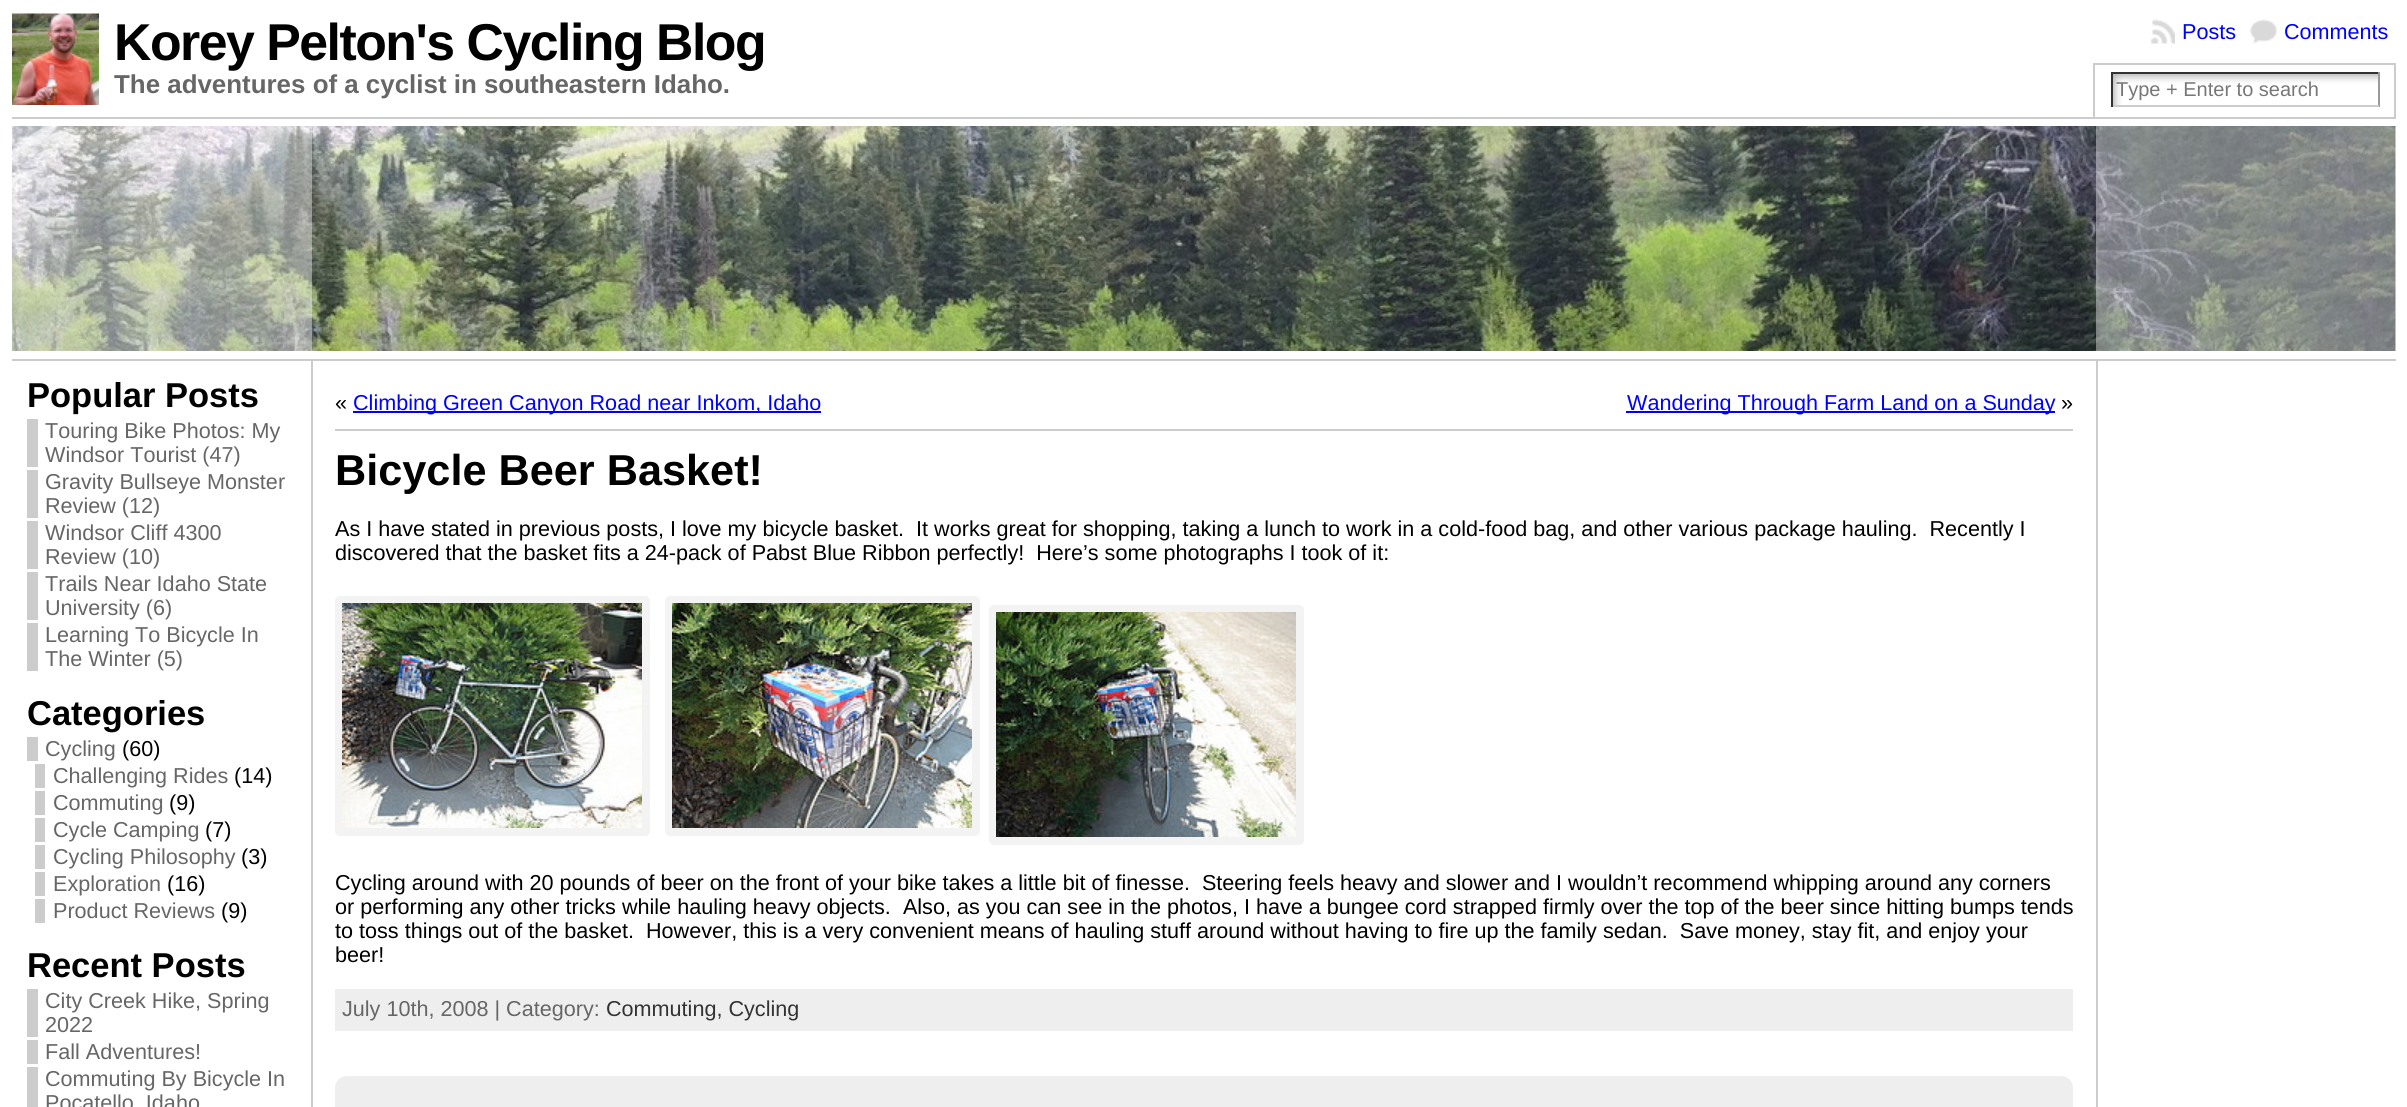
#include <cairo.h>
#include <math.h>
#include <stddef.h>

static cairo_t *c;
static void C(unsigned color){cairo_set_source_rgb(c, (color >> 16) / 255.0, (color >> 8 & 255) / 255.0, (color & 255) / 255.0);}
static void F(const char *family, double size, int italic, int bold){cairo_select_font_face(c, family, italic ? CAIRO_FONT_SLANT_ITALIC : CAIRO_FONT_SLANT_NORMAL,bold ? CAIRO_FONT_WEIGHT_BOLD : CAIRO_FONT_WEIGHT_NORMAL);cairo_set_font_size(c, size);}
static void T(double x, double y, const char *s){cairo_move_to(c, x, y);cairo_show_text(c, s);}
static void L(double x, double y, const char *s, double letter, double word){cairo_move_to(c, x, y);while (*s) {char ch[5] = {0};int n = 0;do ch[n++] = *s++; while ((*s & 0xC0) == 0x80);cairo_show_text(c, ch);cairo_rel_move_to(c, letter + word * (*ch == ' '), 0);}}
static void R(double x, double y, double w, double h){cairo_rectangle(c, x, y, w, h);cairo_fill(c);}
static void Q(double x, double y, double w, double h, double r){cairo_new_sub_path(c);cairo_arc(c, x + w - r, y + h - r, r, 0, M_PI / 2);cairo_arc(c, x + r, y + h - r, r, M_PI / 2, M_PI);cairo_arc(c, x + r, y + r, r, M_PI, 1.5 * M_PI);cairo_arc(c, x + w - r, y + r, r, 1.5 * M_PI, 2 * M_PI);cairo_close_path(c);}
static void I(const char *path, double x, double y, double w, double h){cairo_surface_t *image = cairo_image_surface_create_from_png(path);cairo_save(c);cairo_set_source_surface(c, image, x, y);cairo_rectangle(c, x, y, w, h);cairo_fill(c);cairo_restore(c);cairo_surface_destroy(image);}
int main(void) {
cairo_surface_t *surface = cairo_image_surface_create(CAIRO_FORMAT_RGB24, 2407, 1107);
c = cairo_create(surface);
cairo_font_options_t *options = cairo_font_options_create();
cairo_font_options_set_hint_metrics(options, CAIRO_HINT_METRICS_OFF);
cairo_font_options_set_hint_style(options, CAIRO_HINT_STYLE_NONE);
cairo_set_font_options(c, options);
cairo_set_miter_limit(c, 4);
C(0xffffff);
cairo_paint(c);
I("1.png",12,13,87,92);
F("Liberation Sans",51.8,0,1);
C(0x000000);
L(114,60,"Korey Pelton's Cycling Blog",-1.5,0);
F("Liberation Sans",25.9,0,1);
C(0x666666);
T(114,93,"The adventures of a cyclist in southeastern Idaho.");
I("2.png",2151,19,24,25);
F("Liberation Sans",21.6,0,0);
C(0x0000ff);
T(2182,39,"Posts");
I("3.png",2250,19,27,25);
T(2284,39,"Comments");
C(0xcccccc);
R(2093,63,303,2);
R(2394,63,2,54);
R(2093,63,2,54);
I("4.png",2113,74,265,31);
C(0x333333);
R(2111,72,268,2);
C(0x999999);
R(2378,72,2,35);
C(0xcccccc);
R(2111,105,268,2);
C(0x333333);
R(2111,72,2,35);
F("Liberation Sans",20,0,0);
C(0x777777);
T(2116,96,"Type + Enter to search");
C(0xcccccc);
R(12,117,2384,2);
I("5.png",12,126,2384,225);
cairo_set_source_rgba(c,1,1,1,0.4);
R(12,126,300,225);
R(2096,126,300,225);
C(0xcccccc);
R(311,360,2,747);
R(2096,360,2,747);
R(12,359,2384,2);
F("Liberation Sans",34.5,0,1);
C(0x000000);
T(27,407,"Popular Posts");
C(0xcccccc);
R(27,419,11,48);
F("Liberation Sans",21.6,0,0);
C(0x666666);
T(45,438,"Touring Bike Photos: My");
T(45,462,"Windsor Tourist (47)");
C(0xcccccc);
R(27,470,11,48);
C(0x666666);
T(45,489,"Gravity Bullseye Monster");
T(45,513,"Review (12)");
C(0xcccccc);
R(27,521,11,48);
C(0x666666);
T(45,540,"Windsor Cliff 4300");
T(45,564,"Review (10)");
C(0xcccccc);
R(27,572,11,48);
C(0x666666);
T(45,591,"Trails Near Idaho State");
T(45,615,"University (6)");
C(0xcccccc);
R(27,623,11,48);
C(0x666666);
T(45,642,"Learning To Bicycle In");
T(45,666,"The Winter (5)");
F("Liberation Sans",34.5,0,1);
C(0x000000);
T(27,725,"Categories");
F("Liberation Sans",21.6,0,0);
C(0x666666);
T(45,756,"Cycling");
C(0xcccccc);
R(27,737,11,24);
C(0x000000);
T(122,756,"(60)");
C(0x666666);
T(53,783,"Challenging Rides");
C(0xcccccc);
R(35,764,10,24);
C(0x000000);
T(234,783,"(14)");
C(0x666666);
T(53,810,"Commuting");
C(0xcccccc);
R(35,791,10,24);
C(0x000000);
T(169,810,"(9)");
C(0x666666);
T(53,837,"Cycle Camping");
C(0xcccccc);
R(35,818,10,24);
C(0x000000);
T(205,837,"(7)");
C(0x666666);
T(53,864,"Cycling Philosophy");
C(0xcccccc);
R(35,845,10,24);
C(0x000000);
T(241,864,"(3)");
C(0x666666);
T(53,891,"Exploration");
C(0xcccccc);
R(35,872,10,24);
C(0x000000);
T(167,891,"(16)");
C(0x666666);
T(53,918,"Product Reviews");
C(0xcccccc);
R(35,899,10,24);
C(0x000000);
T(221,918,"(9)");
F("Liberation Sans",34.5,0,1);
T(27,977,"Recent Posts");
C(0xcccccc);
R(27,989,11,48);
F("Liberation Sans",21.6,0,0);
C(0x666666);
T(45,1008,"City Creek Hike, Spring");
T(45,1032,"2022");
C(0xcccccc);
R(27,1040,11,24);
C(0x666666);
T(45,1059,"Fall Adventures!");
C(0xcccccc);
R(27,1067,11,40);
C(0x666666);
T(45,1086,"Commuting By Bicycle In");
T(45,1110,"Pocatello, Idaho");
C(0xcccccc);
R(335,429,1738,2);
C(0x000000);
T(335,410,"«");
C(0x0000ff);
R(353,411,468,2);
T(353,410,"Climbing Green Canyon Road near Inkom, Idaho");
R(1626,411,429,2);
T(1627,410,"Wandering Through Farm Land on a Sunday");
C(0x000000);
T(2061,410,"»");
F("Liberation Sans",43.25,0,1);
T(335,485,"Bicycle Beer Basket!");
F("Liberation Sans",21.6,0,0);
T(335,536,"As I have stated in previous posts, I love my bicycle basket.  It works great for shopping, taking a lunch to work in a cold-food bag, and other various package hauling.  Recently I");
T(335,560,"discovered that the basket fits a 24-pack of Pabst Blue Ribbon perfectly!  Here’s some photographs I took of it:");
C(0xf3f3f3);
Q(335,596,315,240,5);
cairo_fill(c);
Q(665,596,315,240,5);
cairo_fill(c);
I("6.png",342,603,300,225);
I("7.png",672,603,300,225);
Q(989,605,315,240,5);
cairo_fill(c);
I("8.png",996,612,300,225);
C(0x000000);
T(335,890,"Cycling around with 20 pounds of beer on the front of your bike takes a little bit of finesse.  Steering feels heavy and slower and I wouldn’t recommend whipping around any corners");
T(335,914,"or performing any other tricks while hauling heavy objects.  Also, as you can see in the photos, I have a bungee cord strapped firmly over the top of the beer since hitting bumps tends");
T(335,938,"to toss things out of the basket.  However, this is a very convenient means of hauling stuff around without having to fire up the family sedan.  Save money, stay fit, and enjoy your");
T(335,962,"beer!");
C(0xeeeeee);
R(335,989,1738,42);
C(0x666666);
T(342,1016,"July 10th, 2008 | Category:");
C(0x333333);
T(606,1016,"Commuting, Cycling");
C(0xeeeeee);
Q(335,1076,1738,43,12);
cairo_fill(c);
cairo_surface_write_to_png(surface, "o.png");
cairo_font_options_destroy(options);
cairo_destroy(c);
cairo_surface_destroy(surface);
return 0;
}
